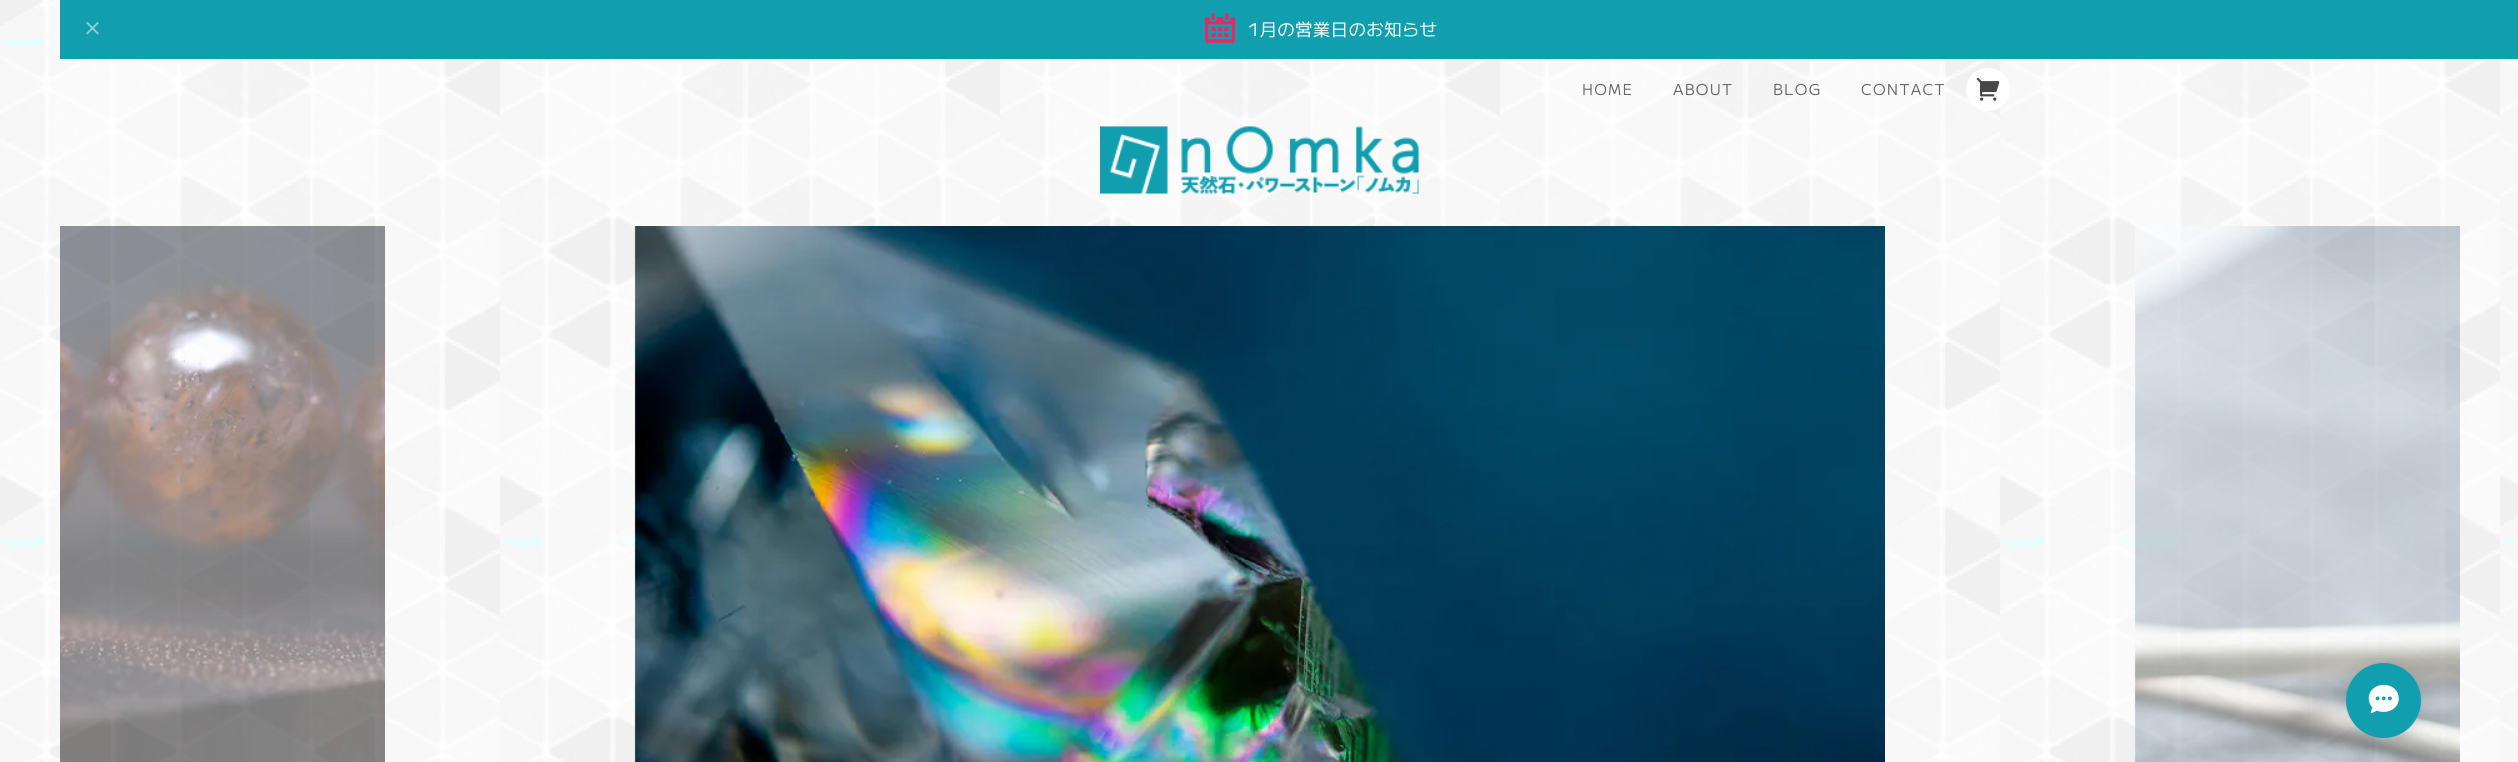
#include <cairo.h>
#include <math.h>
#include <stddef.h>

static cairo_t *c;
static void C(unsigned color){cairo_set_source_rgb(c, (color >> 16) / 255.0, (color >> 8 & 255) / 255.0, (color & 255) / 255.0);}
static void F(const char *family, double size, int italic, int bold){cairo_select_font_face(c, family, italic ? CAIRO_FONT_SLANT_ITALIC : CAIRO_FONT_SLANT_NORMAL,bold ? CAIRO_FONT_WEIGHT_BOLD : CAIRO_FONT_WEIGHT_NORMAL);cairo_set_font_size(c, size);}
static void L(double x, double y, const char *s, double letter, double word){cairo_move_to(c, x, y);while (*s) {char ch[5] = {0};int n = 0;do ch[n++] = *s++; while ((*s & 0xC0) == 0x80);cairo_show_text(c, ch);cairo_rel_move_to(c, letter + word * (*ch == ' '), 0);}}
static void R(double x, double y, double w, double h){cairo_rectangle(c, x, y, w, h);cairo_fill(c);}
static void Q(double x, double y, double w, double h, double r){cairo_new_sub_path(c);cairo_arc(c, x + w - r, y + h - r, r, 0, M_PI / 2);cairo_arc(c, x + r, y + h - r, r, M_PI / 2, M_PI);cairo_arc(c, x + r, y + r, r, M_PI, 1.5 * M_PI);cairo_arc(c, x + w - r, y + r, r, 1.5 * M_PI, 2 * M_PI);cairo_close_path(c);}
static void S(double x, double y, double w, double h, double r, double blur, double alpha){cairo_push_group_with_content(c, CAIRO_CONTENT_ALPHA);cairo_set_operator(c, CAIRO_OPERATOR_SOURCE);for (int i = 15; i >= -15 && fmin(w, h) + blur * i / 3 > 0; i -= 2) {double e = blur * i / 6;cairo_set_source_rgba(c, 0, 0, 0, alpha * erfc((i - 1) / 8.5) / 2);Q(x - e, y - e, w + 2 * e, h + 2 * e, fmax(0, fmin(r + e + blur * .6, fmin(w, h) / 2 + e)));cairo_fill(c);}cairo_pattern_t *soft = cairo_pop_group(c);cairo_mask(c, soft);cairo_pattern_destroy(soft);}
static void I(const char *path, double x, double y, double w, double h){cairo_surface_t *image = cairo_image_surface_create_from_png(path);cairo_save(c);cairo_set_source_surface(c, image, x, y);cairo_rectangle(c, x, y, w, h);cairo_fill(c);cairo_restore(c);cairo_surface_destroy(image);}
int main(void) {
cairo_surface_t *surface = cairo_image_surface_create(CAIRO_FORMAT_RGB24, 2518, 762);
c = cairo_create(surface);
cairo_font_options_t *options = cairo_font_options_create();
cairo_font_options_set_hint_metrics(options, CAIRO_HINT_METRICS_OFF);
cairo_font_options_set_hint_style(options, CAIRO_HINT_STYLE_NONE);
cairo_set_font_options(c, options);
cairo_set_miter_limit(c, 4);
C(0xffffff);
cairo_paint(c);
I("1.png",0,0,2518,762);
C(0x119fb0);
R(60,0,2458,59);
I("2.png",86,21,13,14);
I("3.png",1205,12,30,31);
F("M PLUS 2",17.5,0,0);
C(0xffffff);
L(1248,36,"1月の営業日のお知らせ",.3,0);
F("M PLUS 2",15,0,0);
C(0x666666);
L(1582,95,"HOME",1.25,0);
L(1673,95,"ABOUT",1.25,0);
L(1773,95,"BLOG",1.25,0);
L(1861,95,"CONTACT",1.25,0);
cairo_set_source_rgba(c,1,1,1,0.9);
Q(1966,68,44,43,21.5);
cairo_fill(c);
I("4.png",1976,77,24,24);
I("5.png",1100,126,319,68);
I("6.png",60,226,325,536);
I("7.png",634,226,1251,536);
I("8.png",2134,226,326,536);
C(0x334258);
S(2346,663,75,75,37.5,9.5,.2);
C(0x119fb0);
cairo_arc(c,2383.5,700.5,37.5,0,2 * M_PI);
cairo_fill(c);
I("9.png",2368,684,31,30);
cairo_surface_write_to_png(surface, "o.png");
cairo_font_options_destroy(options);
cairo_destroy(c);
cairo_surface_destroy(surface);
return 0;
}
